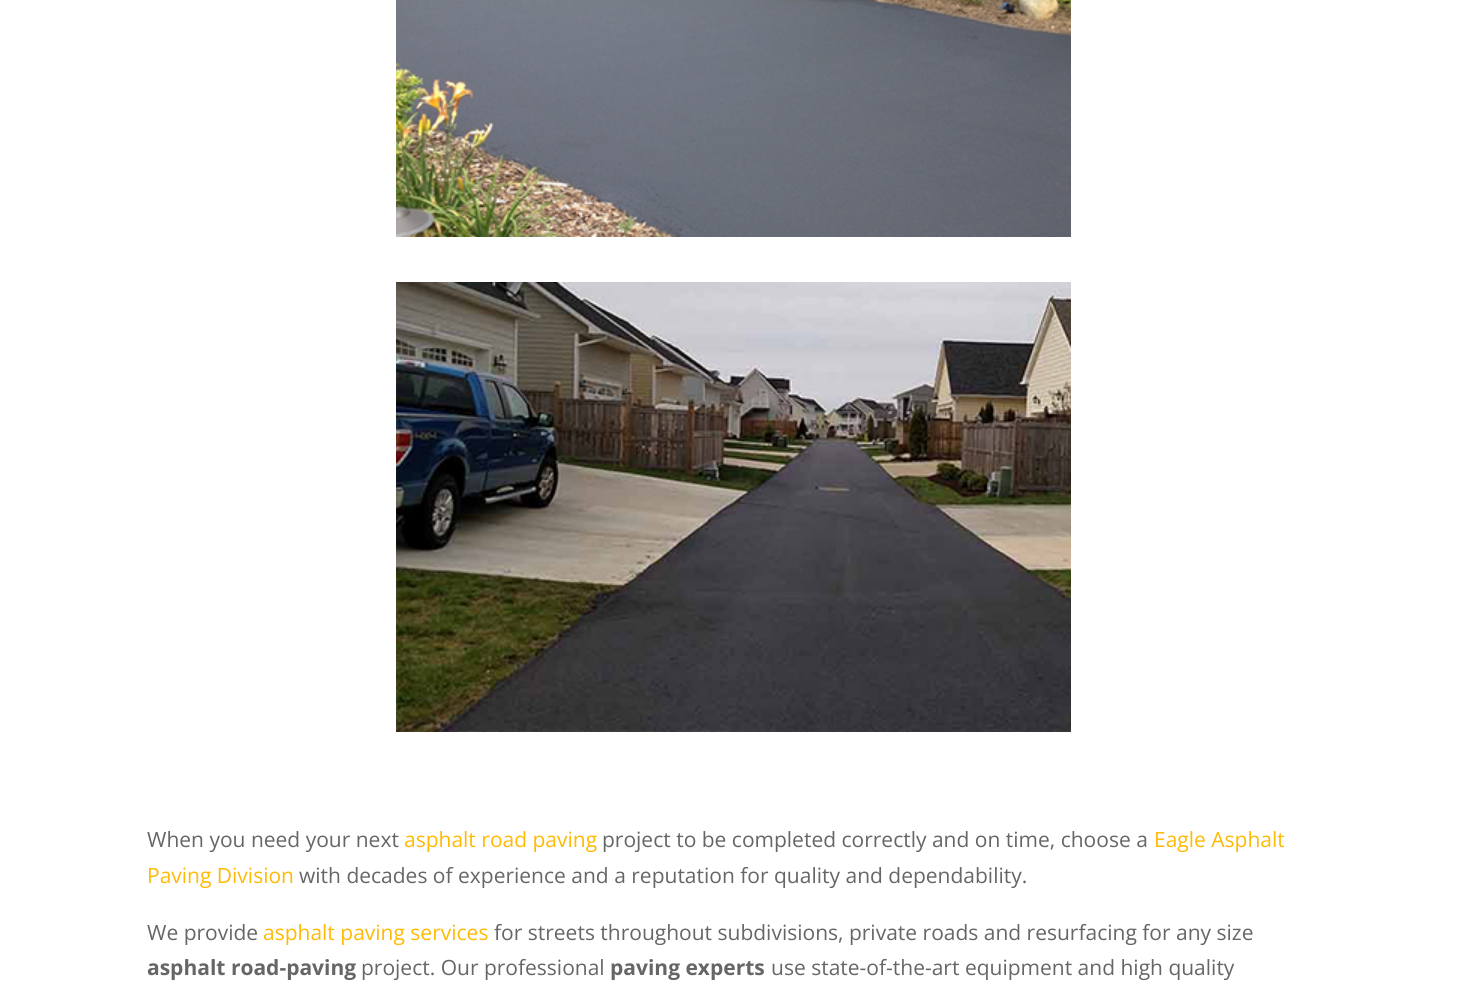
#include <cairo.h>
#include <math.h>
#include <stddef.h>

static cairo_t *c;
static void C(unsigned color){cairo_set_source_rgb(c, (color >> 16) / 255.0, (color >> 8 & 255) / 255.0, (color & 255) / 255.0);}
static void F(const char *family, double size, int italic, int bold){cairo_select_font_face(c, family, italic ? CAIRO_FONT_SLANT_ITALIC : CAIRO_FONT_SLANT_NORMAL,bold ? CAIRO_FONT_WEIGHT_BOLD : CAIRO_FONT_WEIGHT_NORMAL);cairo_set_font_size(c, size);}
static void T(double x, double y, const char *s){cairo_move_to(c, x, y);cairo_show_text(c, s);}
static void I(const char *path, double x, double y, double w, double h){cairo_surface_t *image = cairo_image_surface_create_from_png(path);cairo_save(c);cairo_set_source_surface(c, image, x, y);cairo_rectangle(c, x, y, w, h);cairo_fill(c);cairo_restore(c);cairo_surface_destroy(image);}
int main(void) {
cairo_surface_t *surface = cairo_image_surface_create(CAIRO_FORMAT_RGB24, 1465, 993);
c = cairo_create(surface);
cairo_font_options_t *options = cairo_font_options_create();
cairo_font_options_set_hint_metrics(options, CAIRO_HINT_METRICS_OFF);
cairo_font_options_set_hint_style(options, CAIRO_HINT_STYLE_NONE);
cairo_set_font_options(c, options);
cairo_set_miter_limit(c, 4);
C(0xffffff);
cairo_paint(c);
I("1.png",396,0,675,237);
I("2.png",396,282,675,450);
F("Open Sans",21,0,0);
C(0x666666);
T(147,847,"When you need your next");
C(0xffba05);
T(404,847,"asphalt road paving");
C(0x666666);
T(602,847,"project to be completed correctly and on time, choose a");
C(0xffba05);
T(1154,847,"Eagle Asphalt");
T(147,883,"Paving Division");
C(0x666666);
T(299,883,"with decades of experience and a reputation for quality and dependability.");
T(147,940,"We provide");
C(0xffba05);
T(263,940,"asphalt paving services");
C(0x666666);
T(494,940,"for streets throughout subdivisions, private roads and resurfacing for any size");
F("Open Sans",21,0,1);
T(147,975,"asphalt road-paving");
F("Open Sans",21,0,0);
T(361,975,"project. Our professional");
F("Open Sans",21,0,1);
T(610,975,"paving experts");
F("Open Sans",21,0,0);
T(771,975,"use state-of-the-art equipment and high quality");
cairo_surface_write_to_png(surface, "o.png");
cairo_font_options_destroy(options);
cairo_destroy(c);
cairo_surface_destroy(surface);
return 0;
}
